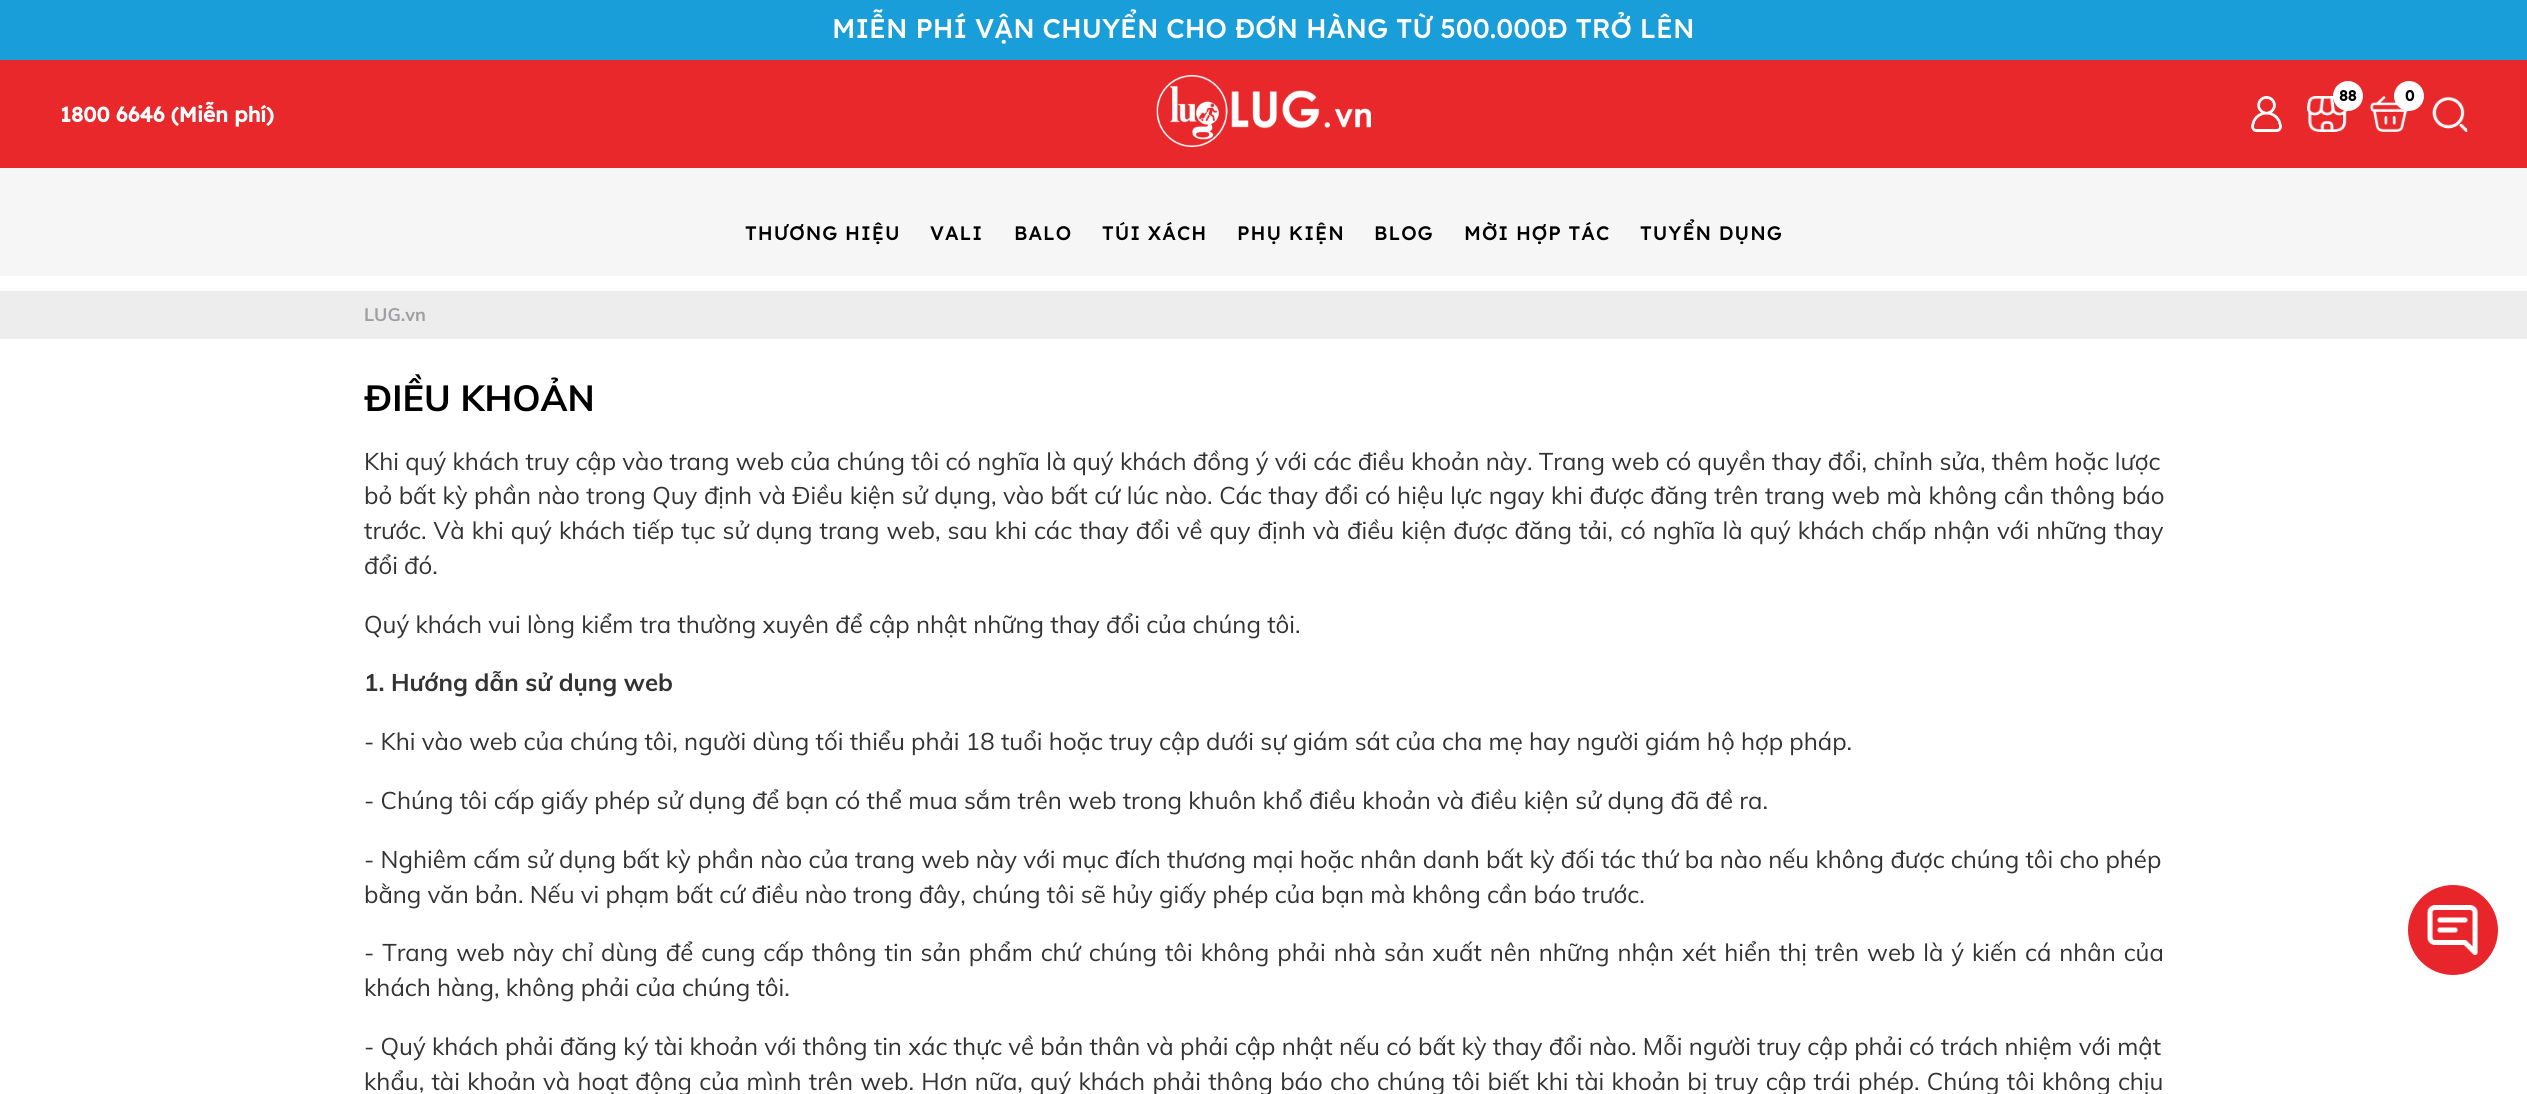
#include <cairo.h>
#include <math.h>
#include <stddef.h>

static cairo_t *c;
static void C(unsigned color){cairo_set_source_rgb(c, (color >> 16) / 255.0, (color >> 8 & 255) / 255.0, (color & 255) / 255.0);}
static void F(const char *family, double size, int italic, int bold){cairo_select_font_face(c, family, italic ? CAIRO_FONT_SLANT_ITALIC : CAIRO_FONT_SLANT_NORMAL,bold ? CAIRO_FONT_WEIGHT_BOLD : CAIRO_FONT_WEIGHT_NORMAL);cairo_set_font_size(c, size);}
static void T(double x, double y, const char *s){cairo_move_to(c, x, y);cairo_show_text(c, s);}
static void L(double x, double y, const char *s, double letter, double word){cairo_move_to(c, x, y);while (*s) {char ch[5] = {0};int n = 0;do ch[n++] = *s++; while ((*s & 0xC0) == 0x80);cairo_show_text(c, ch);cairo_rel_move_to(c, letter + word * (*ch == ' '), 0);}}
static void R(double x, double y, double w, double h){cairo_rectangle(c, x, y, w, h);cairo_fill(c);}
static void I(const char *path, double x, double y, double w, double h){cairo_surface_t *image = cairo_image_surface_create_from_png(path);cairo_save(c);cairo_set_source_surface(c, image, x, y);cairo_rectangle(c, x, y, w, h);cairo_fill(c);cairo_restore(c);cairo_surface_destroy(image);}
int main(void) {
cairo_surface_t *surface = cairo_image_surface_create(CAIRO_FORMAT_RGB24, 2527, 1094);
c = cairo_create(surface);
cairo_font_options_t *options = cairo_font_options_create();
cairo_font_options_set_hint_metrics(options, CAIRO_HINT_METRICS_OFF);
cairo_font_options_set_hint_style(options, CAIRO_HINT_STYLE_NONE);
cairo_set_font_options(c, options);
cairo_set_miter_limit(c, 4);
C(0xffffff);
cairo_paint(c);
C(0x199eda);
R(0,0,2527,60);
F("Readex Pro Medium",27,0,0);
C(0xffffff);
T(832,38,"MIỄN PHÍ VẬN CHUYỂN CHO ĐƠN HÀNG TỪ 500.000Đ TRỞ LÊN");
C(0xe8282b);
R(0,60,2527,108);
I("1.png",1156,75,215,72);
I("2.png",2251,96,31,36);
I("3.png",2307,96,41,36);
C(0xffffff);
cairo_arc(c,2348,96,15,0,2 * M_PI);
cairo_fill(c);
F("Readex Pro",15,0,1);
C(0x000000);
T(2339,101,"88");
I("4.png",2370,96,39,36);
C(0xffffff);
cairo_arc(c,2409,96,15,0,2 * M_PI);
cairo_fill(c);
C(0x000000);
T(2405,101,"0");
I("5.png",2432,96,36,36);
F("Readex Pro",21,0,1);
C(0xffffff);
T(60,122,"1800 6646 (Miễn phí)");
C(0xf6f6f6);
R(0,168,2527,108);
F("Readex Pro Medium",19.5,0,0);
C(0x000000);
L(745,240,"THƯƠNG HIỆU",1,0);
L(930,240,"VALI",1,0);
L(1014,240,"BALO",1,0);
L(1102,240,"TÚI XÁCH",1,0);
L(1237,240,"PHỤ KIỆN",1,0);
L(1374,240,"BLOG",1,0);
L(1464,240,"MỜI HỢP TÁC",1,0);
L(1640,240,"TUYỂN DỤNG",1,0);
C(0xededed);
R(0,291,2527,48);
F("Muli",18,0,1);
C(0x9e9fa1);
T(364,321,"LUG.vn");
F("Muli",36,0,1);
C(0x000000);
T(364,411,"ĐIỀU KHOẢN");
F("Muli",24,0,0);
C(0x333333);
T(364,470,"Khi quý khách truy cập vào trang web của chúng tôi có nghĩa là quý khách đồng ý với các điều khoản này. Trang web có quyền thay đổi, chỉnh sửa, thêm hoặc lược");
L(364,504,"bỏ bất kỳ phần nào trong Quy định và Điều kiện sử dụng, vào bất cứ lúc nào. Các thay đổi có hiệu lực ngay khi được đăng trên trang web mà không cần thông báo",0,.3);
L(364,539,"trước. Và khi quý khách tiếp tục sử dụng trang web, sau khi các thay đổi về quy định và điều kiện được đăng tải, có nghĩa là quý khách chấp nhận với những thay",0,.8);
T(364,574,"đổi đó.");
T(364,633,"Quý khách vui lòng kiểm tra thường xuyên để cập nhật những thay đổi của chúng tôi.");
F("Muli",24,0,1);
T(364,691,"1. Hướng dẫn sử dụng web");
F("Muli",24,0,0);
T(364,750,"- Khi vào web của chúng tôi, người dùng tối thiểu phải 18 tuổi hoặc truy cập dưới sự giám sát của cha mẹ hay người giám hộ hợp pháp.");
T(364,809,"- Chúng tôi cấp giấy phép sử dụng để bạn có thể mua sắm trên web trong khuôn khổ điều khoản và điều kiện sử dụng đã đề ra.");
T(364,868,"- Nghiêm cấm sử dụng bất kỳ phần nào của trang web này với mục đích thương mại hoặc nhân danh bất kỳ đối tác thứ ba nào nếu không được chúng tôi cho phép");
T(364,903,"bằng văn bản. Nếu vi phạm bất cứ điều nào trong đây, chúng tôi sẽ hủy giấy phép của bạn mà không cần báo trước.");
L(364,961,"- Trang web này chỉ dùng để cung cấp thông tin sản phẩm chứ chúng tôi không phải nhà sản xuất nên những nhận xét hiển thị trên web là ý kiến cá nhân của",0,1.65);
T(364,996,"khách hàng, không phải của chúng tôi.");
T(364,1055,"- Quý khách phải đăng ký tài khoản với thông tin xác thực về bản thân và phải cập nhật nếu có bất kỳ thay đổi nào. Mỗi người truy cập phải có trách nhiệm với mật");
L(364,1090,"khẩu, tài khoản và hoạt động của mình trên web. Hơn nữa, quý khách phải thông báo cho chúng tôi biết khi tài khoản bị truy cập trái phép. Chúng tôi không chịu",0,1);
C(0xe9252c);
cairo_new_path(c);
cairo_arc(c,2453,930,45,0,2 * M_PI);
cairo_fill(c);
I("6.png",2427,905,51,50);
cairo_surface_write_to_png(surface, "o.png");
cairo_font_options_destroy(options);
cairo_destroy(c);
cairo_surface_destroy(surface);
return 0;
}
